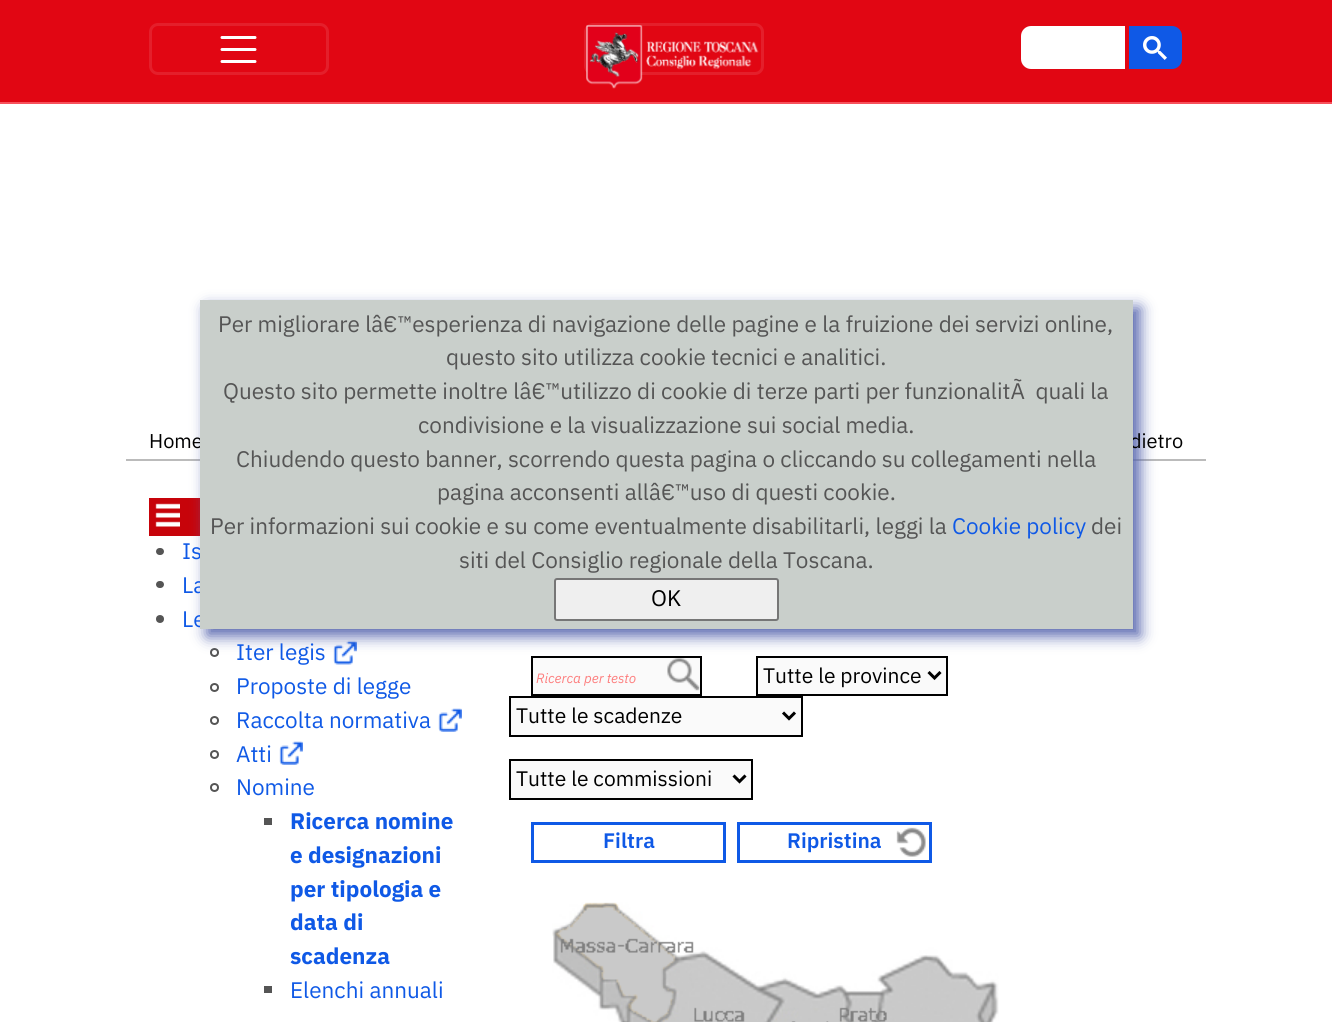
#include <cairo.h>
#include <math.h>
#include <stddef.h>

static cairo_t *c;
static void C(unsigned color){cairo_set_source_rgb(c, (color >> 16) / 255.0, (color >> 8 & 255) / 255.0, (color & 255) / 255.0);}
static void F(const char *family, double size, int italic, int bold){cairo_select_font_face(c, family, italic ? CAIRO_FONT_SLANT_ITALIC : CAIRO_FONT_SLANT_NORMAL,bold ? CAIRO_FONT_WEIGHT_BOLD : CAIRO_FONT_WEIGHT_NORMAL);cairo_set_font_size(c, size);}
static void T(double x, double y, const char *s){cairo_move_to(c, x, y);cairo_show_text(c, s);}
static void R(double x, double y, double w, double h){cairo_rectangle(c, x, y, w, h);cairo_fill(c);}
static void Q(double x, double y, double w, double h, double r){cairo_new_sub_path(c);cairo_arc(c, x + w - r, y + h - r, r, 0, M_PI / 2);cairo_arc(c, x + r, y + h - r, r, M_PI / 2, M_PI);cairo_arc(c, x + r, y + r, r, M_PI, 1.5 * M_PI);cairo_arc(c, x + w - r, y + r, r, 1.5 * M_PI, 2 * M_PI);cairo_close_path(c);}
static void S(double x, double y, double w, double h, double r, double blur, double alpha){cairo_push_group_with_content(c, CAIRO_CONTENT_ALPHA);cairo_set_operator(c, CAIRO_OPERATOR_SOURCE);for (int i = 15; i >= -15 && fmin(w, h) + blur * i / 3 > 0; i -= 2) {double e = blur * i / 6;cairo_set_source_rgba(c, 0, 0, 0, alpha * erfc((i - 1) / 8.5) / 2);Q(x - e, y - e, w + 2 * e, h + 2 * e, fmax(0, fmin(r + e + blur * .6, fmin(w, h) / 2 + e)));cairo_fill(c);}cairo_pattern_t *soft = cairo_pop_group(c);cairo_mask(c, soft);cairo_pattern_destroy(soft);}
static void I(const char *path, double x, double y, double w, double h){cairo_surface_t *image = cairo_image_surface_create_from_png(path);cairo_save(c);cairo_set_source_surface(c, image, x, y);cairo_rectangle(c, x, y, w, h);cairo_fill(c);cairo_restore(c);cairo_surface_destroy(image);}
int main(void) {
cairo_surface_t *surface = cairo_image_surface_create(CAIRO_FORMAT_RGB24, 1332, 1022);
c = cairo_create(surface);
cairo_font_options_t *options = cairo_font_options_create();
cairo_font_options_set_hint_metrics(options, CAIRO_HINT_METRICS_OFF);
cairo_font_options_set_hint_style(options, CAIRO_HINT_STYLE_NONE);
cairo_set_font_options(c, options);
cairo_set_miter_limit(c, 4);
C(0xffffff);
cairo_paint(c);
C(0xe10613);
R(0,0,1332,102);
C(0xf7525c);
R(0,102,1332,2);
Q(150.5,24.5,177,49,7.5);
C(0xe41f2b);
cairo_set_line_width(c,3);
cairo_stroke(c);
cairo_new_path(c);
cairo_move_to(c,222,37.5);
cairo_line_to(c,255,37.5);
cairo_move_to(c,222,49.5);
cairo_line_to(c,255,49.5);
cairo_move_to(c,222,61.5);
cairo_line_to(c,255,61.5);
C(0xffffff);
cairo_set_line_cap(c,CAIRO_LINE_CAP_ROUND);
cairo_stroke(c);
Q(585.5,24.5,177,49,7.5);
C(0xe41f2b);
cairo_set_line_cap(c,CAIRO_LINE_CAP_BUTT);
cairo_stroke(c);
I("1.png",586,25,173,64);
C(0xffffff);
cairo_new_path(c);
cairo_move_to(c,1031,25);
cairo_line_to(c,1126,25);
cairo_line_to(c,1126,70);
cairo_line_to(c,1031,70);
cairo_curve_to(c,1025,70,1020,65,1020,59);
cairo_line_to(c,1020,36);
cairo_curve_to(c,1020,30,1025,25,1031,25);
cairo_close_path(c);
cairo_fill_preserve(c);
C(0xe10613);
cairo_set_line_width(c,2);
cairo_stroke(c);
C(0x0f59e6);
cairo_new_path(c);
cairo_move_to(c,1128,25);
cairo_line_to(c,1172,25);
cairo_curve_to(c,1178,25,1183,30,1183,36);
cairo_line_to(c,1183,59);
cairo_curve_to(c,1183,65,1178,70,1172,70);
cairo_line_to(c,1128,70);
cairo_close_path(c);
cairo_fill_preserve(c);
C(0xe10613);
cairo_stroke(c);
I("2.png",1143,36,24,24);
C(0xbbbbbb);
R(126,459,1080,2);
C(0xc7030a);
R(149,498,51,38);
cairo_arc(c,214.5,652.5,3.5,0,2 * M_PI);
C(0x555555);
cairo_stroke(c);
I("4.png",333,640,24,25);
C(0xfafafa);
R(533,658,167,36);
I("6.png",667,658,33,33);
cairo_rectangle(c,532,657,169,38);
C(0x000000);
cairo_stroke(c);
C(0xfafafa);
cairo_rectangle(c,757,657,190,38);
cairo_fill_preserve(c);
C(0x000000);
cairo_stroke(c);
C(0x5564ad);
S(207,308,933,328,0,7.5,1);
F("IBM Plex Sans",20,0,0);
C(0x000000);
T(149,448,"Home");
T(1130,448,"dietro");
F("IBM Plex Sans",22.5,0,0);
C(0x0f59e6);
T(182,559,"Is");
T(182,593,"La");
T(182,627,"Le");
C(0xc9cfcb);
R(200,300,933,329);
C(0x555555);
T(218,332,"Per migliorare lâ€™esperienza di navigazione delle pagine e la fruizione dei servizi online,");
T(446,365,"questo sito utilizza cookie tecnici e analitici.");
T(223,399,"Questo sito permette inoltre lâ€™utilizzo di cookie di terze parti per funzionalitÃ  quali la");
T(418,433,"condivisione e la visualizzazione sui social media.");
T(236,467,"Chiudendo questo banner, scorrendo questa pagina o cliccando su collegamenti nella");
T(437,500,"pagina acconsenti allâ€™uso di questi cookie.");
T(210,534,"Per informazioni sui cookie e su come eventualmente disabilitarli, leggi la");
C(0x0f59e6);
T(952,534,"Cookie policy");
C(0x555555);
T(1091,534,"dei");
T(459,568,"siti del Consiglio regionale della Toscana.");
C(0xefefef);
Q(555,579,223,41,2);
cairo_fill_preserve(c);
C(0x767676);
cairo_stroke(c);
C(0x000000);
T(651,606,"OK");
I("3.png",155,503,25,24);
C(0x555555);
Q(156,548,8,7,3.5);
cairo_fill(c);
Q(156,581,8,7,3.5);
cairo_fill(c);
cairo_arc(c,160,619,4,0,2 * M_PI);
cairo_fill(c);
C(0x0f59e6);
T(236,660,"Iter legis");
cairo_new_path(c);
cairo_arc(c,214.5,687.5,3.5,0,2 * M_PI);
C(0x555555);
cairo_stroke(c);
C(0x0f59e6);
T(236,694,"Proposte di legge");
cairo_new_path(c);
cairo_arc(c,214.5,720.5,3.5,0,2 * M_PI);
C(0x555555);
cairo_stroke(c);
C(0x0f59e6);
T(236,728,"Raccolta normativa");
I("5.png",438,708,24,24);
cairo_arc(c,214.5,754.5,3.5,0,2 * M_PI);
C(0x555555);
cairo_stroke(c);
C(0x0f59e6);
T(236,762,"Atti");
I("5.png",279,741,24,24);
cairo_arc(c,214.5,787.5,3.5,0,2 * M_PI);
C(0x555555);
cairo_stroke(c);
C(0x0f59e6);
T(236,795,"Nomine");
C(0x555555);
R(264,818,8,7);
F("IBM Plex Sans",22.5,0,1);
C(0x0f59e6);
T(290,829,"Ricerca nomine");
T(290,863,"e designazioni");
T(290,897,"per tipologia e");
T(290,930,"data di");
T(290,964,"scadenza");
C(0x555555);
R(264,986,8,7);
F("IBM Plex Sans",22.5,0,0);
C(0x0f59e6);
T(290,998,"Elenchi annuali");
F("IBM Plex Sans",13.5,1,0);
C(0xfd7d7d);
T(536,683,"Ricerca per testo");
cairo_new_path(c);
cairo_move_to(c,928.5,672);
cairo_line_to(c,934.5,678);
cairo_line_to(c,940.5,672);
C(0x000000);
cairo_set_line_width(c,3);
cairo_stroke(c);
F("IBM Plex Sans",21,0,0);
T(763,683,"Tutte le province");
C(0xfafafa);
cairo_rectangle(c,510,697,292,39);
cairo_fill_preserve(c);
C(0x000000);
cairo_set_line_width(c,2);
cairo_stroke(c);
cairo_new_path(c);
cairo_move_to(c,783,712.5);
cairo_line_to(c,789,718.5);
cairo_line_to(c,795,712.5);
cairo_set_line_width(c,3);
cairo_stroke(c);
T(516,723,"Tutte le scadenze");
C(0xfafafa);
cairo_rectangle(c,510,760,242,39);
cairo_fill_preserve(c);
C(0x000000);
cairo_set_line_width(c,2);
cairo_stroke(c);
cairo_new_path(c);
cairo_move_to(c,733.5,775.5);
cairo_line_to(c,739.5,781.5);
cairo_line_to(c,745.5,775.5);
cairo_set_line_width(c,3);
cairo_stroke(c);
T(516,786,"Tutte le commissioni");
cairo_rectangle(c,532.5,823.5,192,38);
C(0x0f59e6);
cairo_stroke(c);
F("IBM Plex Sans SemiBold",21,0,0);
T(603,848,"Filtra");
I("7.png",896,827,30,30);
cairo_rectangle(c,738.5,823.5,192,38);
cairo_stroke(c);
T(787,848,"Ripristina");
I("8.png",552,902,447,120);
cairo_surface_write_to_png(surface, "o.png");
cairo_font_options_destroy(options);
cairo_destroy(c);
cairo_surface_destroy(surface);
return 0;
}
